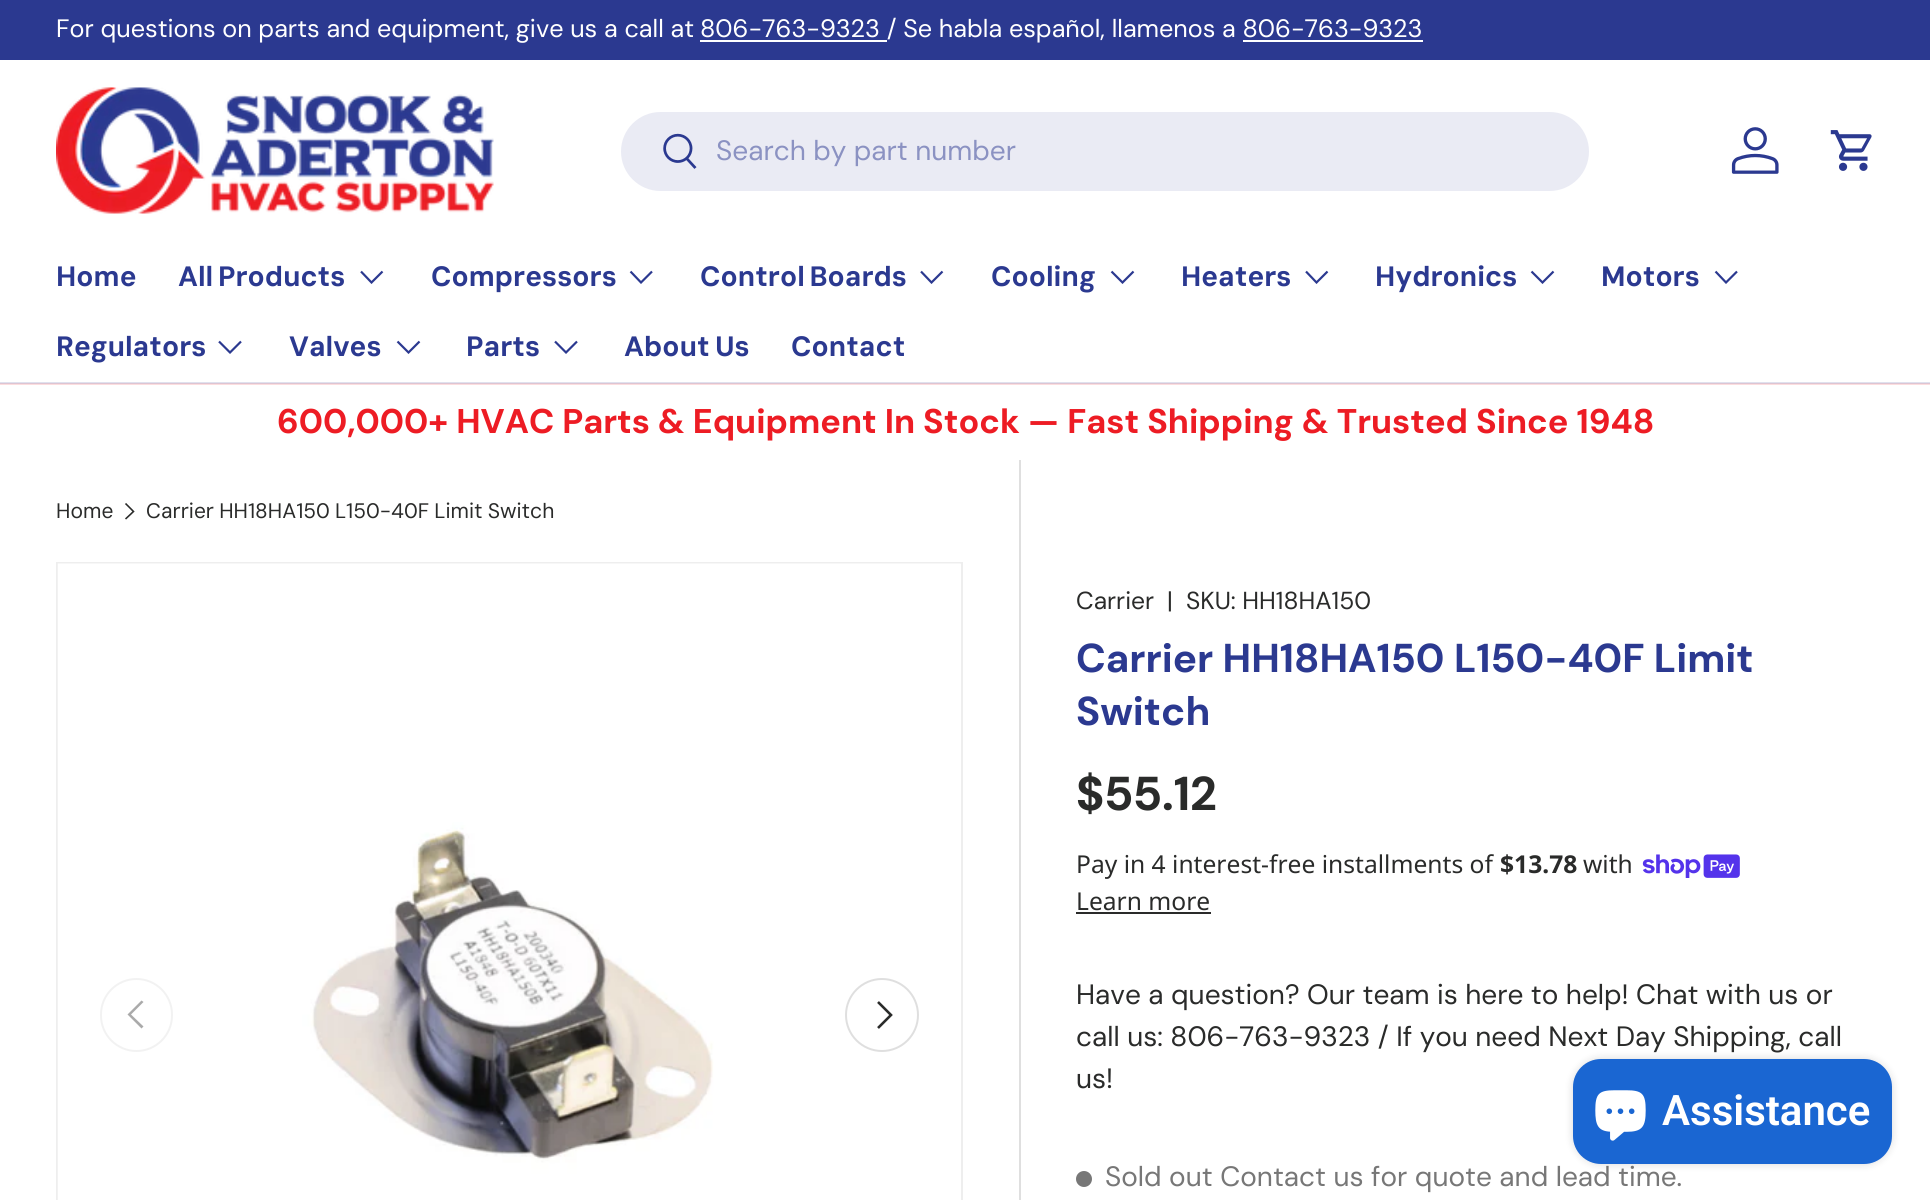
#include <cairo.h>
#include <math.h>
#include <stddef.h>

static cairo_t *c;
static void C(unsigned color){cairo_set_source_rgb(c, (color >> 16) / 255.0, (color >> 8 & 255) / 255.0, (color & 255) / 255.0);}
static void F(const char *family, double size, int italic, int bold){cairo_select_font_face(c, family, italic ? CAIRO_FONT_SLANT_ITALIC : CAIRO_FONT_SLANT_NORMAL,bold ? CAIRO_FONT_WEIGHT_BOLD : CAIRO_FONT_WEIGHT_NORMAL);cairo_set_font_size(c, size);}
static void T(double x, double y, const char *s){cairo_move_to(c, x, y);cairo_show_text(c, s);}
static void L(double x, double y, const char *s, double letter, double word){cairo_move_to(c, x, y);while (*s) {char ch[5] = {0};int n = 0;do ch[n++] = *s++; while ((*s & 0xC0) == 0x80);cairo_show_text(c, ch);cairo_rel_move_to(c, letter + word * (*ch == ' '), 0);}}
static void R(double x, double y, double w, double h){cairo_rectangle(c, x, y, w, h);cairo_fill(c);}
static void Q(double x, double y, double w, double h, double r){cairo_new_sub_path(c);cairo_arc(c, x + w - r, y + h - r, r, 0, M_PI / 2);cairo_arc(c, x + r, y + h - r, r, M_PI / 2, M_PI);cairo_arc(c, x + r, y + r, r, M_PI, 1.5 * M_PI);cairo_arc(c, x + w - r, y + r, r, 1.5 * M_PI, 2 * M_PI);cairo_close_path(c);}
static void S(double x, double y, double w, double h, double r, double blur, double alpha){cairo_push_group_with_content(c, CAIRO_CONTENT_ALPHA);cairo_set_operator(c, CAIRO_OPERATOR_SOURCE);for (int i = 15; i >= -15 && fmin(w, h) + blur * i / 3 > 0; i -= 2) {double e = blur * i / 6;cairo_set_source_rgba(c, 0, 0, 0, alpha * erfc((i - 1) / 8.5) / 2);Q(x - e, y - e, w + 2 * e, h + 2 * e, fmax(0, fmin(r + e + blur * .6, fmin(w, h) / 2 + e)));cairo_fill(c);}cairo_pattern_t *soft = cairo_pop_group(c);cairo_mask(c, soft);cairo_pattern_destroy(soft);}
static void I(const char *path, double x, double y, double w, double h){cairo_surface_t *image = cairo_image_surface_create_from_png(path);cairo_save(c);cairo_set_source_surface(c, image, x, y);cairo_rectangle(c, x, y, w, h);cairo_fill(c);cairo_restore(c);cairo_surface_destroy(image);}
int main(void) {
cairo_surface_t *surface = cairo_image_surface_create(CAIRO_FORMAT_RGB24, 1930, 1200);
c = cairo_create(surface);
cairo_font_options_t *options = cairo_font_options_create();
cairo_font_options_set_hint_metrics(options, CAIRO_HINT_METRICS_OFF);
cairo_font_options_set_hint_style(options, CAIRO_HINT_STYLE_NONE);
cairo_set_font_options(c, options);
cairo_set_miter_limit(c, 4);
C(0xffffff);
cairo_paint(c);
C(0xdfe1ee);
R(0,382,1930,1);
C(0x2b3990);
R(0,0,1930,60);
F("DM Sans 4",25.2,0,0);
C(0xffffff);
T(56,37,"For questions on parts and equipment, give us a call at");
R(700,40,187,2);
T(700,37,"806-763-9323 / Se habla español, llamenos a 806-763-9323");
R(1243,40,180,2);
I("1.png",56,87,438,127);
C(0xeaebf4);
Q(621,112,968,79,39.5);
cairo_fill(c);
I("2.png",663,133,34,36);
F("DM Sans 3",28,0,0);
C(0x8b92c2);
T(716,160,"Search by part number");
I("3.png",1731,127,48,47);
I("4.png",1830,130,42,41);
F("DM Sans 4",28,0,1);
C(0x2b3990);
T(56,286,"Home");
L(178,286,"All Products",0,-2);
cairo_new_path(c);
cairo_move_to(c,382.5,271.5);
cairo_line_to(c,371.5,282.5);
cairo_line_to(c,361,271.5);
cairo_set_line_width(c,2.2);
cairo_stroke(c);
T(431,286,"Compressors");
cairo_new_path(c);
cairo_move_to(c,652,271.5);
cairo_line_to(c,641,282.5);
cairo_line_to(c,630.5,271.5);
cairo_stroke(c);
L(700,286,"Control Boards",0,-2);
cairo_new_path(c);
cairo_move_to(c,942.5,271.5);
cairo_line_to(c,931.5,282.5);
cairo_line_to(c,921,271.5);
cairo_stroke(c);
T(991,286,"Cooling");
cairo_new_path(c);
cairo_move_to(c,1133.5,271.5);
cairo_line_to(c,1122.5,282.5);
cairo_line_to(c,1111.5,271.5);
cairo_stroke(c);
T(1181,286,"Heaters");
cairo_new_path(c);
cairo_move_to(c,1327.5,271.5);
cairo_line_to(c,1316.5,282.5);
cairo_line_to(c,1306,271.5);
cairo_stroke(c);
T(1375,286,"Hydronics");
cairo_new_path(c);
cairo_move_to(c,1553.5,271.5);
cairo_line_to(c,1542.5,282.5);
cairo_line_to(c,1531.5,271.5);
cairo_stroke(c);
T(1601,286,"Motors");
cairo_new_path(c);
cairo_move_to(c,1737,271.5);
cairo_line_to(c,1726,282.5);
cairo_line_to(c,1715.5,271.5);
cairo_stroke(c);
T(56,356,"Regulators");
cairo_new_path(c);
cairo_move_to(c,241,341.5);
cairo_line_to(c,230,352.5);
cairo_line_to(c,219,341.5);
cairo_stroke(c);
T(289,356,"Valves");
cairo_new_path(c);
cairo_move_to(c,419.5,341.5);
cairo_line_to(c,408.5,352.5);
cairo_line_to(c,397.5,341.5);
cairo_stroke(c);
T(466,356,"Parts");
cairo_new_path(c);
cairo_move_to(c,577,341.5);
cairo_line_to(c,566,352.5);
cairo_line_to(c,555,341.5);
cairo_stroke(c);
L(624,356,"About Us",0,-1);
T(791,356,"Contact");
C(0xfcddde);
R(0,384,1930,1);
C(0xddc4d2);
R(0,383,1930,1);
F("DM Sans",34.25,0,1);
C(0xed1c24);
T(277,433,"600,000+ HVAC Parts & Equipment In Stock — Fast Shipping & Trusted Since 1948");
F("DM Sans",21,0,0);
C(0x2a2b2a);
T(56,518,"Home");
cairo_new_path(c);
cairo_move_to(c,125.5,503.5);
cairo_line_to(c,133.5,511.5);
cairo_line_to(c,125.5,519);
cairo_set_line_width(c,1.6);
cairo_stroke(c);
L(146,518,"Carrier HH18HA150 L150-40F Limit Switch",0,-.5);
cairo_rectangle(c,57,563,905,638);
C(0xeeeeee);
cairo_set_line_width(c,2);
cairo_stroke(c);
I("5.png",57,563,904,637);
Q(101,979,71,72,35.5);
C(0xf2f2f2);
cairo_stroke(c);
C(0xaaaaaa);
cairo_new_path(c);
cairo_move_to(c,127.5,1014.5);
cairo_line_to(c,141.5,1000.5);
cairo_line_to(c,143.5,1002);
cairo_line_to(c,131,1014.5);
cairo_line_to(c,143.5,1026.5);
cairo_line_to(c,141.5,1028.5);
cairo_close_path(c);
cairo_fill(c);
cairo_arc(c,882,1015,36,0,2 * M_PI);
C(0xdfdfdf);
cairo_stroke(c);
cairo_new_path(c);
cairo_move_to(c,878,1002);
cairo_line_to(c,891,1015);
cairo_line_to(c,878,1028);
C(0x2a2b2a);
cairo_set_line_width(c,2.6);
cairo_stroke(c);
C(0xdfdfdf);
R(1019,460,2,740);
F("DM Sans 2",24.6,0,0);
C(0x2a2b2a);
T(1076,609,"Carrier");
T(1167,609,"|");
T(1186,609,"SKU: HH18HA150");
F("DM Sans 2",40.3,0,1);
C(0x2b3990);
T(1076,672,"Carrier HH18HA150 L150-40F Limit");
T(1076,725,"Switch");
F("DM Sans 3",47.5,0,1);
C(0x2a2b2a);
T(1076,810,"$55.12");
F("Noto Sans",24.6,0,0);
T(1076,873,"Pay in 4 interest-free installments of");
F("Noto Sans",24.6,0,1);
T(1500,873,"$13.78");
F("Noto Sans",24.6,0,0);
T(1583,873,"with");
I("6.png",1642,854,98,24);
T(1076,910,"Learn more");
R(1076,912,135,2);
F("DM Sans 3",28,0,0);
T(1076,1004,"Have a question? Our team is here to help! Chat with us or");
T(1076,1046,"call us: 806-763-9323 / If you need Next Day Shipping, call");
T(1076,1088,"us!");
C(0x777777);
cairo_new_path(c);
cairo_arc(c,1084,1179,8,0,2 * M_PI);
cairo_fill(c);
T(1105,1186,"Sold out Contact us for quote and lead time.");
C(0x000000);
S(1573,1059,319,105,28,4.5,.15);
C(0x1a66d2);
Q(1573,1059,319,105,28);
cairo_fill(c);
I("7.png",1595,1090,51,51);
F("Roboto SemiBold",42,0,0);
C(0xffffff);
T(1662,1125,"Assistance");
cairo_surface_write_to_png(surface, "o.png");
cairo_font_options_destroy(options);
cairo_destroy(c);
cairo_surface_destroy(surface);
return 0;
}
